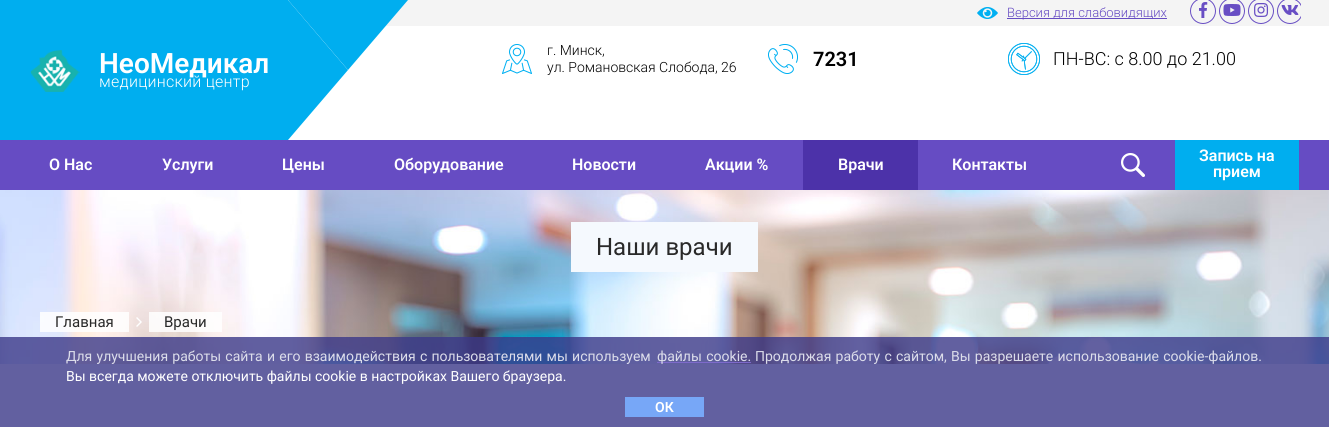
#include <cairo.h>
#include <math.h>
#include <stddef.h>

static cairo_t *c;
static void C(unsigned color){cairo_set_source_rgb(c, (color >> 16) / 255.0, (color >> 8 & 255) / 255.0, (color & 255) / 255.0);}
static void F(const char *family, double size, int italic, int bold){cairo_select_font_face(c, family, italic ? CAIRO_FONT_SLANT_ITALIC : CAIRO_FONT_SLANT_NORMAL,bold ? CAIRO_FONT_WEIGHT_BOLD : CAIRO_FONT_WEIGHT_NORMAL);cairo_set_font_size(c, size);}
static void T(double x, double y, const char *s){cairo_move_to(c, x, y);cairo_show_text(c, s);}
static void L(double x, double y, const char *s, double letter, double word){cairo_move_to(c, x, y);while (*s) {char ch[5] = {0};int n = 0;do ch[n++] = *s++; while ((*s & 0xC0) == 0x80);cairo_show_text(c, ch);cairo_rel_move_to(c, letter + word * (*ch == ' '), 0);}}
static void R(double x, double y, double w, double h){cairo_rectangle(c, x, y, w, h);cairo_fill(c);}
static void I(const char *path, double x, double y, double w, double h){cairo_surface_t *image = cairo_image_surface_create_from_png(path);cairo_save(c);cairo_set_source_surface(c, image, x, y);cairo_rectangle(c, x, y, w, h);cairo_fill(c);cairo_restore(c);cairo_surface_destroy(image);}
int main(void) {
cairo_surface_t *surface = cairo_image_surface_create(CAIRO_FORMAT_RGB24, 1329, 427);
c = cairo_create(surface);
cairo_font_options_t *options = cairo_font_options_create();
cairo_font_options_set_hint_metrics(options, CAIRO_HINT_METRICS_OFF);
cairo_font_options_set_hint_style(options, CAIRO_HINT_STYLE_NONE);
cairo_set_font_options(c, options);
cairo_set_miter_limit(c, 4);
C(0xffffff);
cairo_paint(c);
C(0xf4f4f4);
R(288,0,1041,26);
I("1.png",977,7,21,12);
C(0x664cc3);
R(1007,18,160,1);
F("Roboto Light",13,0,0);
T(1007,17,"Версия для слабовидящих");
I("2.png",1199,2,9,16);
cairo_arc(c,1203,11,12.5,0,2 * M_PI);
C(0x684ec4);
cairo_set_line_width(c,1);
cairo_stroke(c);
I("3.png",1223,4,18,12);
cairo_arc(c,1232,11,12.5,0,2 * M_PI);
cairo_stroke(c);
I("4.png",1254,3,15,14);
cairo_arc(c,1261,11,12.5,0,2 * M_PI);
cairo_stroke(c);
I("5.png",1281,5,18,10);
cairo_save(c);
cairo_rectangle(c,977,0,324,26);
cairo_clip(c);
cairo_arc(c,1290,11,12.5,0,2 * M_PI);
cairo_stroke(c);
cairo_restore(c);
C(0x00aeef);
R(0,0,288,140);
I("6.png",30,50,50,42);
F("Roboto SemiBold",28,0,0);
C(0xffffff);
T(99,73,"НеоМедикал");
F("Roboto Light",16,0,0);
L(99,87,"медицинский центр",.25,0);
C(0x00aeef);
cairo_new_path(c);
cairo_move_to(c,288,0);
cairo_line_to(c,408,0);
cairo_line_to(c,348,70);
cairo_close_path(c);
cairo_fill(c);
cairo_new_path(c);
cairo_move_to(c,288,140);
cairo_line_to(c,288,0);
cairo_line_to(c,348,70);
cairo_close_path(c);
cairo_fill(c);
I("7.png",502,44,30,30);
F("Roboto Light",14,0,0);
C(0x000000);
T(547,55,"г. Минск,");
T(547,72,"ул. Романовская Слобода, 26");
I("8.png",768,44,30,30);
F("Roboto SemiBold",20,0,0);
T(813,66,"7231");
I("9.png",1008,43,32,32);
F("Roboto Light",18,0,0);
T(1053,65,"ПН-ВС: с 8.00 до 21.00");
C(0x664cc3);
R(0,140,1329,50);
F("Roboto SemiBold",16,0,0);
C(0xffffff);
T(49,170,"О Нас");
T(162,170,"Услуги");
T(282,170,"Цены");
T(394,170,"Оборудование");
T(572,170,"Новости");
T(705,170,"Акции %");
C(0x4c32a9);
R(803,140,115,50);
C(0xffffff);
T(838,170,"Врачи");
T(952,170,"Контакты");
I("10.png",1121,153,24,24);
C(0x00aeef);
R(1175,140,124,50);
C(0xffffff);
T(1199,161,"Запись на");
T(1213,177,"прием");
I("11.png",0,190,1329,174);
C(0xf5f9fe);
R(571,222,187,50);
F("Roboto",24,0,0);
C(0x292929);
T(596,255,"Наши врачи");
cairo_set_source_rgba(c,1,1,1,0.85);
R(40,312,89,20);
F("Roboto",15,0,0);
C(0x292929);
T(55,327,"Главная");
I("12.png",136,317,6,10);
cairo_set_source_rgba(c,1,1,1,0.85);
R(149,312,73,20);
C(0x292929);
T(164,327,"Врачи");
cairo_set_source_rgba(c,0.231,0.224,0.533,0.8);
R(0,337,1329,90);
F("Roboto",14,0,0);
C(0xdcddea);
L(66,361,"Для улучшения работы сайта и его взаимодействия с пользователями мы используем",0,.75);
cairo_set_source_rgba(c,1,1,1,0.8);
R(657,362,94,1);
cairo_set_source_rgba(c,0.4,0.298,0.765,0.8);
R(657,362,94,1);
C(0xdcddea);
L(657,361,"файлы cookie.",0,1);
L(755,361,"Продолжая работу с сайтом, Вы разрешаете использование cookie-файлов.",0,.75);
C(0xffffff);
T(66,381,"Вы всегда можете отключить файлы cookie в настройках Вашего браузера.");
C(0x77a7f7);
R(625,397,79,20);
F("Roboto SemiBold",14,0,0);
C(0xffffff);
T(655,412,"ОК");
cairo_surface_write_to_png(surface, "o.png");
cairo_font_options_destroy(options);
cairo_destroy(c);
cairo_surface_destroy(surface);
return 0;
}
